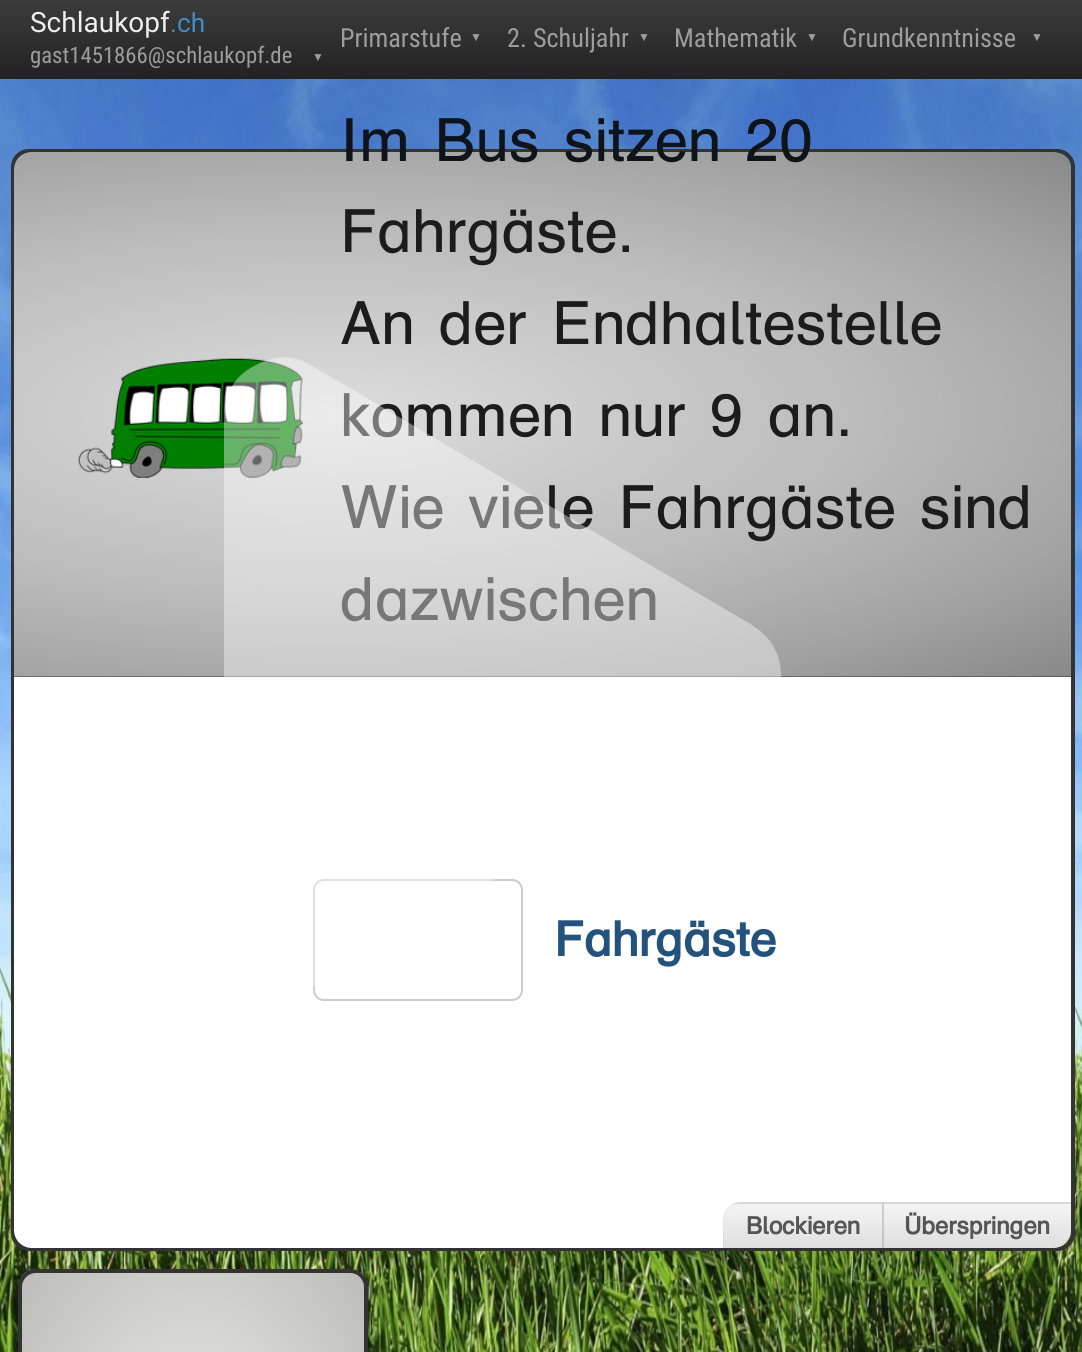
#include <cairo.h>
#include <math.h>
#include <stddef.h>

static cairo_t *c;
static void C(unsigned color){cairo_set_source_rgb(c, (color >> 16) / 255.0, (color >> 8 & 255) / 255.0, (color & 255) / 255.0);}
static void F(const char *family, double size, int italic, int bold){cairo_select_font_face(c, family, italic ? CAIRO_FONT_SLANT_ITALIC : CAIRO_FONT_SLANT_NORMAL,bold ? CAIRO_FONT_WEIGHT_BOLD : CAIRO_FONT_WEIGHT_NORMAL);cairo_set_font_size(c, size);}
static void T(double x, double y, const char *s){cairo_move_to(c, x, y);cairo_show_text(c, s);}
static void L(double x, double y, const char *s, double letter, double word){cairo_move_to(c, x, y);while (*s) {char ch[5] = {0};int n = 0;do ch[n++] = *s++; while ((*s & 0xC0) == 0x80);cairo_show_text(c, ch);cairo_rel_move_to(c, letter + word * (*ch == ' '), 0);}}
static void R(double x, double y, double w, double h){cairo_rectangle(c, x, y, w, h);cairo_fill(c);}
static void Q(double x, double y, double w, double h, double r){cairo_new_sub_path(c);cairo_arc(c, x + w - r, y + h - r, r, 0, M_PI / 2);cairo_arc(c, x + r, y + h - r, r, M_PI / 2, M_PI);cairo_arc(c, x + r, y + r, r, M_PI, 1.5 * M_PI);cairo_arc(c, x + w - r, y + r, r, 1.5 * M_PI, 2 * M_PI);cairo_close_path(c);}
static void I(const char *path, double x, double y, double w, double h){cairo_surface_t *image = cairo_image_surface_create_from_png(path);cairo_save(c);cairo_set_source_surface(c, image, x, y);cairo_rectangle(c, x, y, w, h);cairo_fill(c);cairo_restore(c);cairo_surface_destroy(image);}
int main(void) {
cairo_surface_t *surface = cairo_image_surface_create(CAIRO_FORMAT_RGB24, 1082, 1352);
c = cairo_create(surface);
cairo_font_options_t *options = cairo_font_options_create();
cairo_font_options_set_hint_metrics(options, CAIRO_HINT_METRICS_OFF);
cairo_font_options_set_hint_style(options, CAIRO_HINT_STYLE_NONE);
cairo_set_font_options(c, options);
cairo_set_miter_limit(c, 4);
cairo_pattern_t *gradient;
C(0xffffff);
cairo_paint(c);
gradient = cairo_pattern_create_linear(542,0,542,79);
cairo_pattern_add_color_stop_rgba(gradient,0,0.235,0.235,0.235,1);
cairo_pattern_add_color_stop_rgba(gradient,1,0.133,0.133,0.133,1);
cairo_set_source(c,gradient);
cairo_pattern_destroy(gradient);
R(0,0,1082,79);
F("Roboto",28,0,0);
C(0xeeeeee);
T(30,32,"Schlaukopf");
F("Roboto",26.25,0,0);
C(0x428bca);
T(170,32,".ch");
F("Roboto Condensed",22.75,0,0);
C(0x9d9d9d);
T(30,63,"gast1451866@schlaukopf.de");
F("Liberation Sans",12,0,0);
L(312,61,"▼",8,0);
F("Roboto Condensed",26.25,0,0);
T(340,47,"Primarstufe");
F("Liberation Sans",12,0,0);
L(470,41,"▼",8,0);
F("Roboto Condensed",26.25,0,0);
T(507,47,"2. Schuljahr");
F("Liberation Sans",12,0,0);
L(638,41,"▼",8,0);
F("Roboto Condensed",26.25,0,0);
T(674,47,"Mathematik");
F("Liberation Sans",12,0,0);
L(806,41,"▼",8,0);
F("Roboto Condensed",26.25,0,0);
T(842,47,"Grundkenntnisse");
F("Liberation Sans",12,0,0);
L(1031,41,"▼",8,0);
I("1.png",0,79,1082,1273);
Q(13,151,1060,1098,16);
C(0x333333);
cairo_set_line_width(c,4);
cairo_stroke(c);
gradient = cairo_pattern_create_radial(0,0,0,0,0,1);
cairo_pattern_set_matrix(gradient, &(cairo_matrix_t){1.0 / 1586, 0, 0, 1.0 / 549, -1.0 * 331 / 1586, -1.0 * 414 / 549});
cairo_pattern_add_color_stop_rgba(gradient,0,0.867,0.867,0.867,1);
cairo_pattern_add_color_stop_rgba(gradient,.33,0.737,0.737,0.737,1);
cairo_pattern_add_color_stop_rgba(gradient,.53,0.631,0.631,0.631,1);
cairo_pattern_add_color_stop_rgba(gradient,1,0.298,0.298,0.298,1);
cairo_set_source(c,gradient);
cairo_pattern_destroy(gradient);
cairo_new_path(c);
cairo_move_to(c,32,152);
cairo_line_to(c,1053,152);
cairo_curve_to(c,1063,152,1071,160,1071,170);
cairo_line_to(c,1071,676);
cairo_line_to(c,14,676);
cairo_line_to(c,14,170);
cairo_curve_to(c,14,160,22,152,32,152);
cairo_close_path(c);
cairo_fill(c);
gradient = cairo_pattern_create_radial(0,0,0,0,0,1);
cairo_pattern_set_matrix(gradient, &(cairo_matrix_t){1.0 / 1586, 0, 0, 1.0 / 549, -1.0 * 331 / 1586, -1.0 * 937 / 549});
cairo_pattern_add_color_stop_rgba(gradient,0,0.867,0.867,0.867,1);
cairo_pattern_add_color_stop_rgba(gradient,.33,0.737,0.737,0.737,1);
cairo_pattern_add_color_stop_rgba(gradient,.53,0.631,0.631,0.631,1);
cairo_pattern_add_color_stop_rgba(gradient,1,0.298,0.298,0.298,1);
cairo_set_source(c,gradient);
cairo_pattern_destroy(gradient);
R(14,676,1057,1);
cairo_set_source_rgba(c,0.196,0.196,0.196,0.5);
R(14,676,1057,1);
I("2.png",78,358,225,120);
F("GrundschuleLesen",61.25,0,0);
C(0x1c1c1c);
T(340,436,"kommen nur 9 an.");
T(340,528,"Wie viele Fahrgäste sind");
T(340,620,"dazwischen");
C(0xffffff);
cairo_new_path(c);
cairo_move_to(c,14,677);
cairo_line_to(c,1071,677);
cairo_line_to(c,1071,1230);
cairo_curve_to(c,1071,1240,1063,1248,1053,1248);
cairo_line_to(c,32,1248);
cairo_curve_to(c,22,1248,14,1240,14,1230);
cairo_close_path(c);
cairo_fill(c);
Q(314,880,208,120,10);
C(0xcccccc);
cairo_set_line_width(c,2);
cairo_stroke(c);
F("GrundschuleLesen",49,0,1);
C(0x23527c);
T(554,956,"Fahrgäste");
cairo_set_source_rgba(c,1,1,1,0.4);
cairo_new_path(c);
cairo_move_to(c,752,625);
cairo_curve_to(c,771,637,781,654,781,676);
cairo_curve_to(c,781,699,771,716,752,727);
cairo_line_to(c,314,986);
cairo_curve_to(c,295,998,275,998,254,987);
cairo_curve_to(c,234,976,224,958,224,935);
cairo_line_to(c,224,418);
cairo_curve_to(c,224,393,235,375,256,365);
cairo_curve_to(c,277,354,296,355,314,367);
cairo_close_path(c);
cairo_fill(c);
F("GrundschuleLesen",61.25,0,0);
C(0x0f141b);
T(340,161,"Im Bus sitzen 20");
C(0x1c1c1c);
T(340,252,"Fahrgäste.");
T(340,344,"An der Endhaltestelle");
cairo_save(c);
cairo_new_path(c);
cairo_move_to(c,741,1202);
cairo_line_to(c,882,1202);
cairo_line_to(c,882,1248);
cairo_line_to(c,723,1248);
cairo_line_to(c,723,1220);
cairo_curve_to(c,723,1210,731,1202,741,1202);
cairo_close_path(c);
cairo_clip(c);
gradient = cairo_pattern_create_linear(803,1160,803,1204);
cairo_pattern_add_color_stop_rgba(gradient,0,0.957,0.957,0.957,1);
cairo_pattern_add_color_stop_rgba(gradient,1,0.875,0.875,0.875,1);
cairo_set_source(c,gradient);
cairo_pattern_destroy(gradient);
R(733,1202,149,2);
gradient = cairo_pattern_create_linear(803,1204,803,1248);
cairo_pattern_add_color_stop_rgba(gradient,0,0.957,0.957,0.957,1);
cairo_pattern_add_color_stop_rgba(gradient,1,0.875,0.875,0.875,1);
cairo_set_source(c,gradient);
cairo_pattern_destroy(gradient);
R(723,1204,159,44);
cairo_restore(c);
cairo_set_source_rgba(c,0.588,0.588,0.588,0.1);
cairo_set_fill_rule(c,CAIRO_FILL_RULE_EVEN_ODD);
cairo_new_path(c);
cairo_move_to(c,740,1202);
cairo_line_to(c,882,1202);
cairo_line_to(c,882,1248);
cairo_line_to(c,723,1248);
cairo_line_to(c,723,1220);
cairo_curve_to(c,723,1210,731,1202,740,1202);
cairo_close_path(c);
cairo_move_to(c,740,1204);
cairo_line_to(c,882,1204);
cairo_line_to(c,882,1248);
cairo_line_to(c,724,1248);
cairo_line_to(c,724,1220);
cairo_curve_to(c,724,1211,732,1204,740,1204);
cairo_close_path(c);
cairo_fill(c);
F("GrundschuleLesen",24.5,0,1);
C(0x555555);
T(746,1234,"Blockieren");
gradient = cairo_pattern_create_linear(977,1160,977,1204);
cairo_pattern_add_color_stop_rgba(gradient,0,0.957,0.957,0.957,1);
cairo_pattern_add_color_stop_rgba(gradient,1,0.875,0.875,0.875,1);
cairo_set_source(c,gradient);
cairo_pattern_destroy(gradient);
R(882,1202,2,2);
gradient = cairo_pattern_create_linear(977,1204,977,1248);
cairo_pattern_add_color_stop_rgba(gradient,0,0.894,0.894,0.894,.4);
cairo_pattern_add_color_stop_rgba(gradient,1,0.682,0.682,0.682,.4);
cairo_set_source(c,gradient);
cairo_pattern_destroy(gradient);
cairo_new_path(c);
cairo_move_to(c,882,1204);
cairo_line_to(c,1071,1204);
cairo_line_to(c,1071,1230);
cairo_curve_to(c,1071,1240,1063,1248,1053,1248);
cairo_line_to(c,882,1248);
cairo_close_path(c);
cairo_fill(c);
C(0xd8d8d8);
cairo_set_fill_rule(c,CAIRO_FILL_RULE_WINDING);
cairo_new_path(c);
cairo_move_to(c,884,1204);
cairo_line_to(c,882,1202);
cairo_line_to(c,1071,1202);
cairo_line_to(c,1071,1204);
cairo_close_path(c);
cairo_fill(c);
cairo_set_source_rgba(c,0.471,0.471,0.471,0.3);
cairo_new_path(c);
cairo_move_to(c,882,1248);
cairo_line_to(c,884,1248);
cairo_line_to(c,884,1204);
cairo_line_to(c,882,1202);
cairo_close_path(c);
cairo_fill(c);
C(0x555555);
T(904,1234,"Überspringen");
cairo_save(c);
Q(18,1269,350,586,18);
cairo_clip(c);
gradient = cairo_pattern_create_radial(0,0,0,0,0,1);
cairo_pattern_set_matrix(gradient, &(cairo_matrix_t){1.0 / 243, 0, 0, 1.0 / 410, -1.0 * 193 / 243, -1.0 * 1562 / 410});
cairo_pattern_add_color_stop_rgba(gradient,0,0.898,0.902,0.886,1);
cairo_pattern_add_color_stop_rgba(gradient,.3,0.898,0.902,0.886,1);
cairo_pattern_add_color_stop_rgba(gradient,1,0.737,0.741,0.725,1);
cairo_set_source(c,gradient);
cairo_pattern_destroy(gradient);
R(21,1272,343,80);
cairo_restore(c);
Q(20,1271,346,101,16);
C(0x333333);
cairo_set_line_width(c,4);
cairo_stroke(c);
cairo_surface_write_to_png(surface, "o.png");
cairo_font_options_destroy(options);
cairo_destroy(c);
cairo_surface_destroy(surface);
return 0;
}
